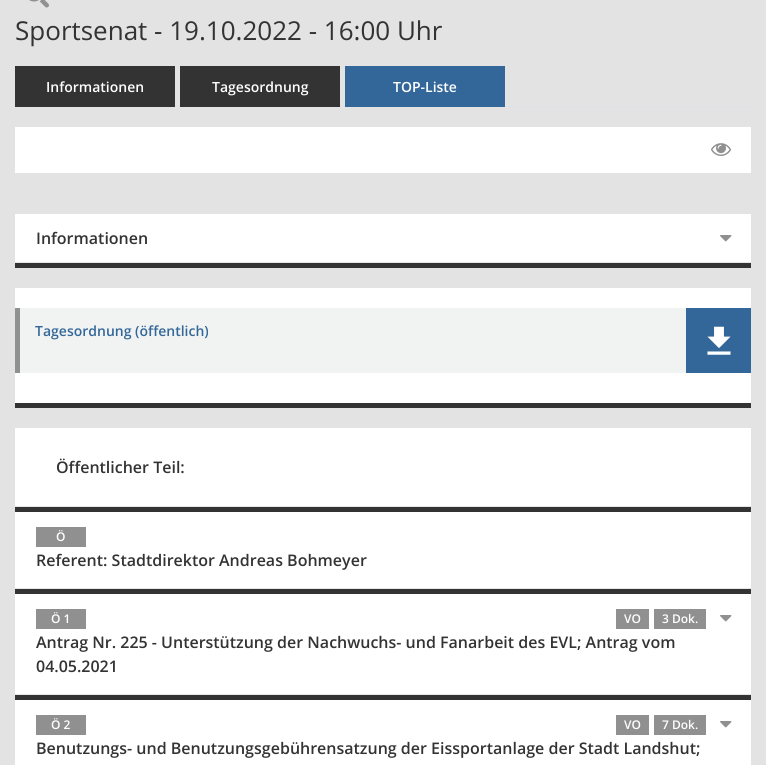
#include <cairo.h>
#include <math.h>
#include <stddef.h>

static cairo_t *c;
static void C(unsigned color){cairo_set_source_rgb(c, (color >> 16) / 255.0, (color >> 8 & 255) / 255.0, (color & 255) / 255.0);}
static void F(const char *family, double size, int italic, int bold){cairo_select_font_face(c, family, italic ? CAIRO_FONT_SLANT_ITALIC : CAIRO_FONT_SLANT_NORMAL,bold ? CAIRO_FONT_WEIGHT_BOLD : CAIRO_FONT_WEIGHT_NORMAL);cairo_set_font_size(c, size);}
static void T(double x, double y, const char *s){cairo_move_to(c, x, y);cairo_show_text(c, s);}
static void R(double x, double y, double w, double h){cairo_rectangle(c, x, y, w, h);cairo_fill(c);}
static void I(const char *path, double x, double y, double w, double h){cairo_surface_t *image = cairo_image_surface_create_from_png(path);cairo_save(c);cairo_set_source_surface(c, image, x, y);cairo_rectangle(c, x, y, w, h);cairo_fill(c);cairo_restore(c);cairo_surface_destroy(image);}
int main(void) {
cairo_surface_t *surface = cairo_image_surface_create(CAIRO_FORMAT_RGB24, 766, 765);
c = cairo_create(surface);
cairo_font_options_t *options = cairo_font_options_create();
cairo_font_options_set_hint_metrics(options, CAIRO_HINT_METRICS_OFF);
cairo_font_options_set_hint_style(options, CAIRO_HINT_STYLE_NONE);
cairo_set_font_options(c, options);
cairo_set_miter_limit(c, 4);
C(0xe3e3e3);
cairo_paint(c);
I("1.png",29,0,20,8);
F("Open Sans",26,0,0);
C(0x333333);
T(15,40,"Sportsenat - 19.10.2022 - 16:00 Uhr");
C(0xdee2e6);
R(175,106,576,1);
C(0x333333);
R(15,66,160,41);
F("Open Sans SemiBold",14,0,0);
C(0xffffff);
T(46,92,"Informationen");
C(0x333333);
R(180,66,160,41);
C(0xffffff);
T(212,92,"Tagesordnung");
C(0x336799);
R(345,66,160,41);
C(0xffffff);
T(393,92,"TOP-Liste");
R(15,127,736,46);
I("2.png",711,143,20,13);
R(15,214,736,48);
C(0x333333);
R(15,263,736,5);
C(0xe6e6e6);
R(15,262,736,1);
F("Open Sans SemiBold",16,0,0);
C(0x333333);
T(36,244,"Informationen");
I("3.png",720,235,12,7);
C(0xffffff);
R(15,288,736,115);
C(0x333333);
R(15,403,736,5);
C(0xf0f3f2);
R(20,308,666,65);
C(0x909090);
R(15,308,5,65);
F("Open Sans SemiBold",14,0,0);
C(0x336799);
T(35,336,"Tagesordnung (öffentlich)");
R(686,308,65,65);
I("4.png",707,326,24,29);
C(0xffffff);
R(15,428,736,78);
C(0x333333);
R(15,507,736,5);
C(0xe6e6e6);
R(15,506,736,1);
F("Open Sans SemiBold",16,0,0);
C(0x333333);
T(56,473,"Öffentlicher Teil:");
C(0xffffff);
R(15,512,736,76);
C(0x333333);
R(15,589,736,5);
C(0xe6e6e6);
R(15,588,736,1);
C(0x909090);
R(36,527,50,20);
F("Open Sans SemiBold",12,0,0);
C(0xffffff);
T(56,541,"Ö");
F("Open Sans SemiBold",16,0,0);
C(0x333333);
T(36,566,"Referent: Stadtdirektor Andreas Bohmeyer");
C(0xffffff);
R(15,594,736,100);
C(0x333333);
R(15,695,736,5);
C(0xe6e6e6);
R(15,694,736,1);
C(0x909090);
R(36,609,50,20);
F("Open Sans SemiBold",12,0,0);
C(0xffffff);
T(51,623,"Ö 1");
C(0x909090);
R(616,609,33,20);
C(0xffffff);
T(624,623,"VO");
C(0x909090);
R(654,609,52,20);
C(0xffffff);
T(662,623,"3 Dok.");
F("Open Sans SemiBold",16,0,0);
C(0x333333);
T(36,648,"Antrag Nr. 225 - Unterstützung der Nachwuchs- und Fanarbeit des EVL; Antrag vom");
T(36,672,"04.05.2021");
I("3.png",720,615,12,7);
C(0xffffff);
R(15,700,736,65);
C(0x909090);
R(36,715,50,20);
F("Open Sans SemiBold",12,0,0);
C(0xffffff);
T(51,729,"Ö 2");
C(0x909090);
R(616,715,33,20);
C(0xffffff);
T(624,729,"VO");
C(0x909090);
R(654,715,52,20);
C(0xffffff);
T(662,729,"7 Dok.");
F("Open Sans SemiBold",16,0,0);
C(0x333333);
T(36,754,"Benutzungs- und Benutzungsgebührensatzung der Eissportanlage der Stadt Landshut;");
I("3.png",720,721,12,7);
cairo_surface_write_to_png(surface, "o.png");
cairo_font_options_destroy(options);
cairo_destroy(c);
cairo_surface_destroy(surface);
return 0;
}
